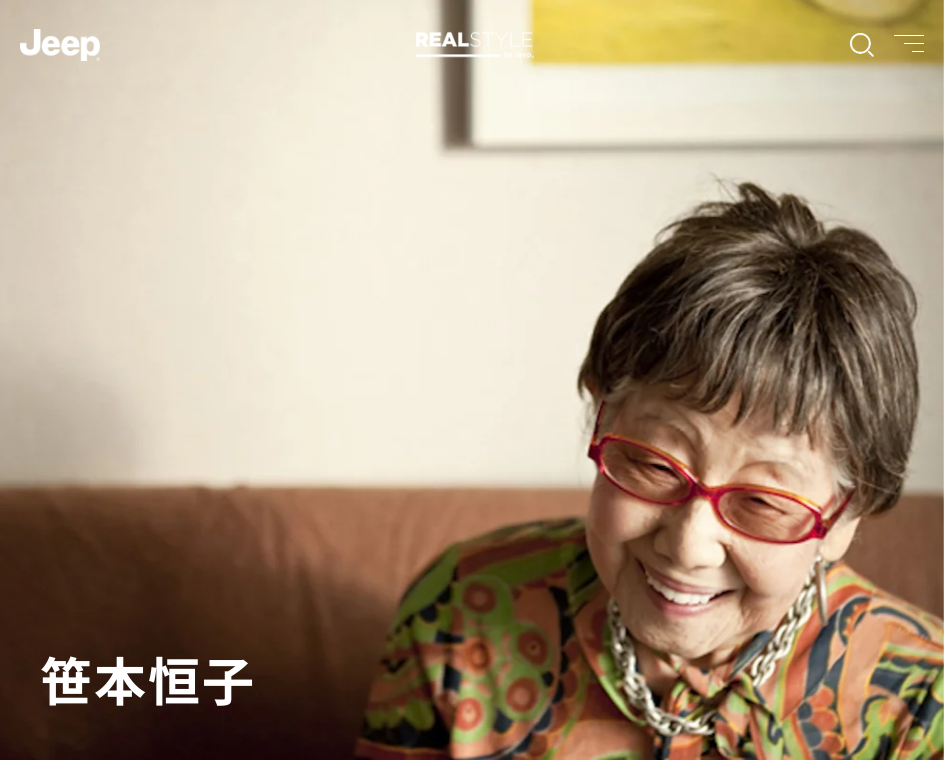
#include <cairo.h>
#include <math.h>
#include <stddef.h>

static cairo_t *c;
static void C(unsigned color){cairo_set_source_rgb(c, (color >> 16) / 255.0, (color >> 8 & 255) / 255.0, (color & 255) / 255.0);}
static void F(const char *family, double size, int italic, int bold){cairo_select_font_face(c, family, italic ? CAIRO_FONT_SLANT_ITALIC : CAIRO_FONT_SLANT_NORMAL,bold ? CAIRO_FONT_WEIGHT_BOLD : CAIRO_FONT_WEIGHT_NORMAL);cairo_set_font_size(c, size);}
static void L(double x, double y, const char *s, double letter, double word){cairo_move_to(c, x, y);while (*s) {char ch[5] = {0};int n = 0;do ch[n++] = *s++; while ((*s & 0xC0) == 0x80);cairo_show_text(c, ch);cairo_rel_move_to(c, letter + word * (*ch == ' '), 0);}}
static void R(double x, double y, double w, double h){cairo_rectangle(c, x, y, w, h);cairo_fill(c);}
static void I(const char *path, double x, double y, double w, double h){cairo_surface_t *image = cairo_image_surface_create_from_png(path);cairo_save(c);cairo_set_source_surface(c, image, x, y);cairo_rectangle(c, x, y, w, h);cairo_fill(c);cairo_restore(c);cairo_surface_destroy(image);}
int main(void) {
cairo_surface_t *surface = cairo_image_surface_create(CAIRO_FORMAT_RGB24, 944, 760);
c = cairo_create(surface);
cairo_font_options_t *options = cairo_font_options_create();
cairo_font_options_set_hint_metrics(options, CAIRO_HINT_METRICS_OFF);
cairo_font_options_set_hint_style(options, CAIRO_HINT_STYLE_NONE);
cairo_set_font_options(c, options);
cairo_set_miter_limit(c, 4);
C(0xffffff);
cairo_paint(c);
I("4.png",0,0,944,760);
I("1.png",20,29,80,32);
I("2.png",416,31,118,28);
I("3.png",850,33,24,24);
C(0xffffff);
R(894,35,30,1);
R(904,43,20,1);
R(912,51,12,1);
F("Noto Sans JP",52,0,1);
L(40,701,"笹本恒子",2,0);
cairo_surface_write_to_png(surface, "o.png");
cairo_font_options_destroy(options);
cairo_destroy(c);
cairo_surface_destroy(surface);
return 0;
}
